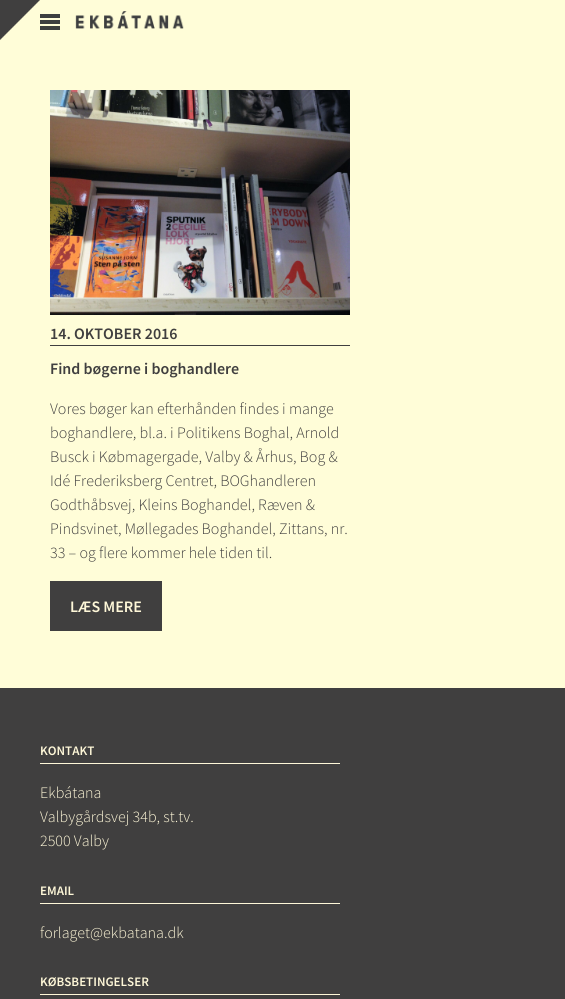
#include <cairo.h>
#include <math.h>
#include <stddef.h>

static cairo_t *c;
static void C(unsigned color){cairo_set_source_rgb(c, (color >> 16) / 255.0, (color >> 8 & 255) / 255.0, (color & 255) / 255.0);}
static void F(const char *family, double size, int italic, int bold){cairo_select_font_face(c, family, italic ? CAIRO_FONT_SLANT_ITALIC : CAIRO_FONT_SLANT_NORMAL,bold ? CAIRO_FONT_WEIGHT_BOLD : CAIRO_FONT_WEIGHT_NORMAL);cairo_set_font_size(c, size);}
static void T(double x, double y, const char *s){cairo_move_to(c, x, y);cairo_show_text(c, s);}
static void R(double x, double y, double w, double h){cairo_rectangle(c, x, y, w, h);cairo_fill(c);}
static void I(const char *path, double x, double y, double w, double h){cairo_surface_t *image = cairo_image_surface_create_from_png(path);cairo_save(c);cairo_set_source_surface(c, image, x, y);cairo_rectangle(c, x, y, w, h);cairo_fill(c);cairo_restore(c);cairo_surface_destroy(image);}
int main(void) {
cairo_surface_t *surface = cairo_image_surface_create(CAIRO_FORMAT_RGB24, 565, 999);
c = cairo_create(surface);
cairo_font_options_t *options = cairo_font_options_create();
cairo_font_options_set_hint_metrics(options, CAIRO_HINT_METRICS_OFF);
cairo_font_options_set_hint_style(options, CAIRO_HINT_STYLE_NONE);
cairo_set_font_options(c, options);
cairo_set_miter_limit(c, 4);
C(0xfffdd8);
cairo_paint(c);
I("1.png",0,0,40,40);
I("2.png",40,14,20,16);
I("3.png",75,11,109,18);
I("4.png",50,90,300,225);
C(0x403f3f);
R(50,345,300,1);
F("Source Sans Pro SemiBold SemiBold",16,0,0);
T(50,339,"14. OKTOBER 2016");
T(50,374,"Find bøgerne i boghandlere");
F("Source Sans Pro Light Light",16,0,0);
T(50,414,"Vores bøger kan efterhånden findes i mange");
T(50,438,"boghandlere, bl.a. i Politikens Boghal, Arnold");
T(50,462,"Busck i Købmagergade, Valby & Århus, Bog &");
T(50,486,"Idé Frederiksberg Centret, BOGhandleren");
T(50,510,"Godthåbsvej, Kleins Boghandel, Ræven &");
T(50,534,"Pindsvinet, Møllegades Boghandel, Zittans, nr.");
T(50,558,"33 – og flere kommer hele tiden til.");
R(50,581,112,50);
F("Source Sans Pro SemiBold SemiBold",16,0,0);
C(0xfef7d8);
T(70,612,"LÆS MERE");
C(0x403f3f);
R(0,688,565,311);
C(0xfef7d8);
R(40,763,300,1);
F("Source Sans Pro SemiBold SemiBold",13,0,0);
T(40,755,"KONTAKT");
F("Source Sans Pro Light Light",16,0,0);
T(40,798,"Ekbátana");
T(40,822,"Valbygårdsvej 34b, st.tv.");
T(40,846,"2500 Valby");
R(40,903,300,1);
F("Source Sans Pro SemiBold SemiBold",13,0,0);
T(40,895,"EMAIL");
F("Source Sans Pro Light Light",16,0,0);
T(40,938,"forlaget@ekbatana.dk");
R(40,994,300,1);
F("Source Sans Pro SemiBold SemiBold",13,0,0);
T(40,986,"KØBSBETINGELSER");
cairo_surface_write_to_png(surface, "o.png");
cairo_font_options_destroy(options);
cairo_destroy(c);
cairo_surface_destroy(surface);
return 0;
}
